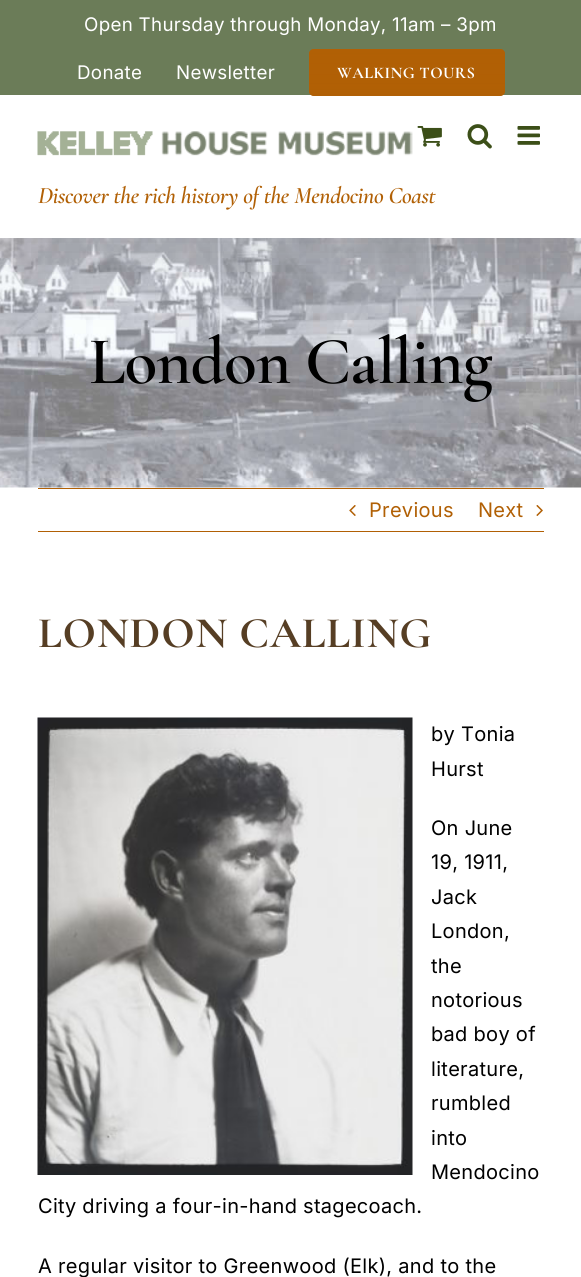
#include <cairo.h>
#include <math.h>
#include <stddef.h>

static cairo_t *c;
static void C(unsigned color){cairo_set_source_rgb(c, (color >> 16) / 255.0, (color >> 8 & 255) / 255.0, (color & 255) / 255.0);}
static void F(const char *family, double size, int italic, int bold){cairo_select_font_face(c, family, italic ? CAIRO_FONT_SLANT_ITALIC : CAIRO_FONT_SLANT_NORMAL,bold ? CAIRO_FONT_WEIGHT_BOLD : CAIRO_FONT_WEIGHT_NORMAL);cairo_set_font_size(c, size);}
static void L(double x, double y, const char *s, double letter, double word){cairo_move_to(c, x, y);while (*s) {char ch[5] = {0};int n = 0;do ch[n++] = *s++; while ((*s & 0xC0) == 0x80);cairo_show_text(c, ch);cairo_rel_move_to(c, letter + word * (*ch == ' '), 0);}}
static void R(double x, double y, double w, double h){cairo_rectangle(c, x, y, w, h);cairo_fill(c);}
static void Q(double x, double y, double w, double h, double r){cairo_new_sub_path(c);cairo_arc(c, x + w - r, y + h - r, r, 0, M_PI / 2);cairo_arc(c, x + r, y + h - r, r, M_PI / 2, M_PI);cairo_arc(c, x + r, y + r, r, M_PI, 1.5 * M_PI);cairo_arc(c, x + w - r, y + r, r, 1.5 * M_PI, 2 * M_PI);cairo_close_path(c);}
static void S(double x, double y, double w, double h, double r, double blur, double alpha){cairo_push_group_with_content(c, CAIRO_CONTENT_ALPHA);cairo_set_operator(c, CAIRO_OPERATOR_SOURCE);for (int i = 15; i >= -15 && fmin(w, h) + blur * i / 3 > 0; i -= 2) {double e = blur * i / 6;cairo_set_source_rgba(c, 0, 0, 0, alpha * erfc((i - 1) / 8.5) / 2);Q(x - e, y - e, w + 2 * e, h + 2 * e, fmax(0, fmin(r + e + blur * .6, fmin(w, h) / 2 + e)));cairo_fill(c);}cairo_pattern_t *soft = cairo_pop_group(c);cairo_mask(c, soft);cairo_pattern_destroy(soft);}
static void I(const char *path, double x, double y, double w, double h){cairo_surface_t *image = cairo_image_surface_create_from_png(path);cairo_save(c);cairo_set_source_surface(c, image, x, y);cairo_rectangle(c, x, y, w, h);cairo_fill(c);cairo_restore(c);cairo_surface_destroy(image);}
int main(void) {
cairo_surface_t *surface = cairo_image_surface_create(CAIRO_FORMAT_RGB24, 581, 1277);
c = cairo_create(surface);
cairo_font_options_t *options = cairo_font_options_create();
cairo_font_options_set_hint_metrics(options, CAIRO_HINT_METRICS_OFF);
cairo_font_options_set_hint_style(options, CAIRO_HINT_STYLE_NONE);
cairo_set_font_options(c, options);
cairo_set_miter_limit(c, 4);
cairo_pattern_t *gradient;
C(0xffffff);
cairo_paint(c);
I("5.png",0,238,581,250);
C(0x000000);
S(3,15,576,233,0,31,.14);
C(0x6b7c58);
R(0,0,581,95);
F("Inter",18.75,0,0);
C(0xffffff);
L(84,31,"Open Thursday through Monday, 11am – 3pm",.3,0);
L(77,79,"Donate",.3,0);
L(176,79,"Newsletter",.3,0);
R(0,95,581,143);
C(0xb16005);
Q(309,49,196,47,5);
cairo_fill(c);
gradient = cairo_pattern_create_linear(407,49,407,96);
cairo_pattern_add_color_stop_rgba(gradient,0,0.694,0.376,0.02,1);
cairo_pattern_add_color_stop_rgba(gradient,1,0.694,0.376,0.02,.78);
cairo_set_source(c,gradient);
cairo_pattern_destroy(gradient);
Q(309,49,196,47,5);
cairo_fill(c);
F("Cormorant Garamond",16.25,0,1);
C(0xffffff);
L(337,78,"WALKING TOURS",.4,0);
I("1.png",417,126,25,21);
I("2.png",467,124,25,25);
I("3.png",517,126,23,19);
I("4.png",37,131,376,25);
F("Cormorant Garamond SemiBold",23.75,1,0);
C(0xb16005);
L(38,203,"Discover the rich history of the Mendocino Coast",-.35,0);
F("Cormorant Garamond SemiBold",67.5,0,0);
C(0x000000);
L(89,383,"London Calling",-1,0);
C(0xb16005);
R(38,488,506,1);
R(38,531,506,1);
I("6.png",349,505,7,11);
F("Inter",20,0,0);
L(369,517,"Previous",.3,0);
L(478,517,"Next",.3,0);
I("7.png",536,505,7,11);
F("Cormorant Garamond",43.75,0,1);
C(0x563e24);
L(38,647,"LONDON CALLING",.7,0);
I("8.png",37,717,376,458);
F("Inter",20,0,0);
C(0x000000);
L(431,741,"by Tonia",.3,0);
L(431,776,"Hurst",.3,0);
L(431,835,"On June",.3,0);
L(431,869,"19, 1911,",.3,0);
L(431,904,"Jack",.3,0);
L(431,938,"London,",.3,0);
L(431,973,"the",.3,0);
L(431,1007,"notorious",.3,0);
L(431,1041,"bad boy of",.3,0);
L(431,1076,"literature,",.3,0);
L(431,1110,"rumbled",.3,0);
L(431,1145,"into",.3,0);
L(431,1179,"Mendocino",.3,0);
L(38,1213,"City driving a four-in-hand stagecoach.",.3,0);
L(38,1273,"A regular visitor to Greenwood (Elk), and to the",.3,0);
cairo_surface_write_to_png(surface, "o.png");
cairo_font_options_destroy(options);
cairo_destroy(c);
cairo_surface_destroy(surface);
return 0;
}
